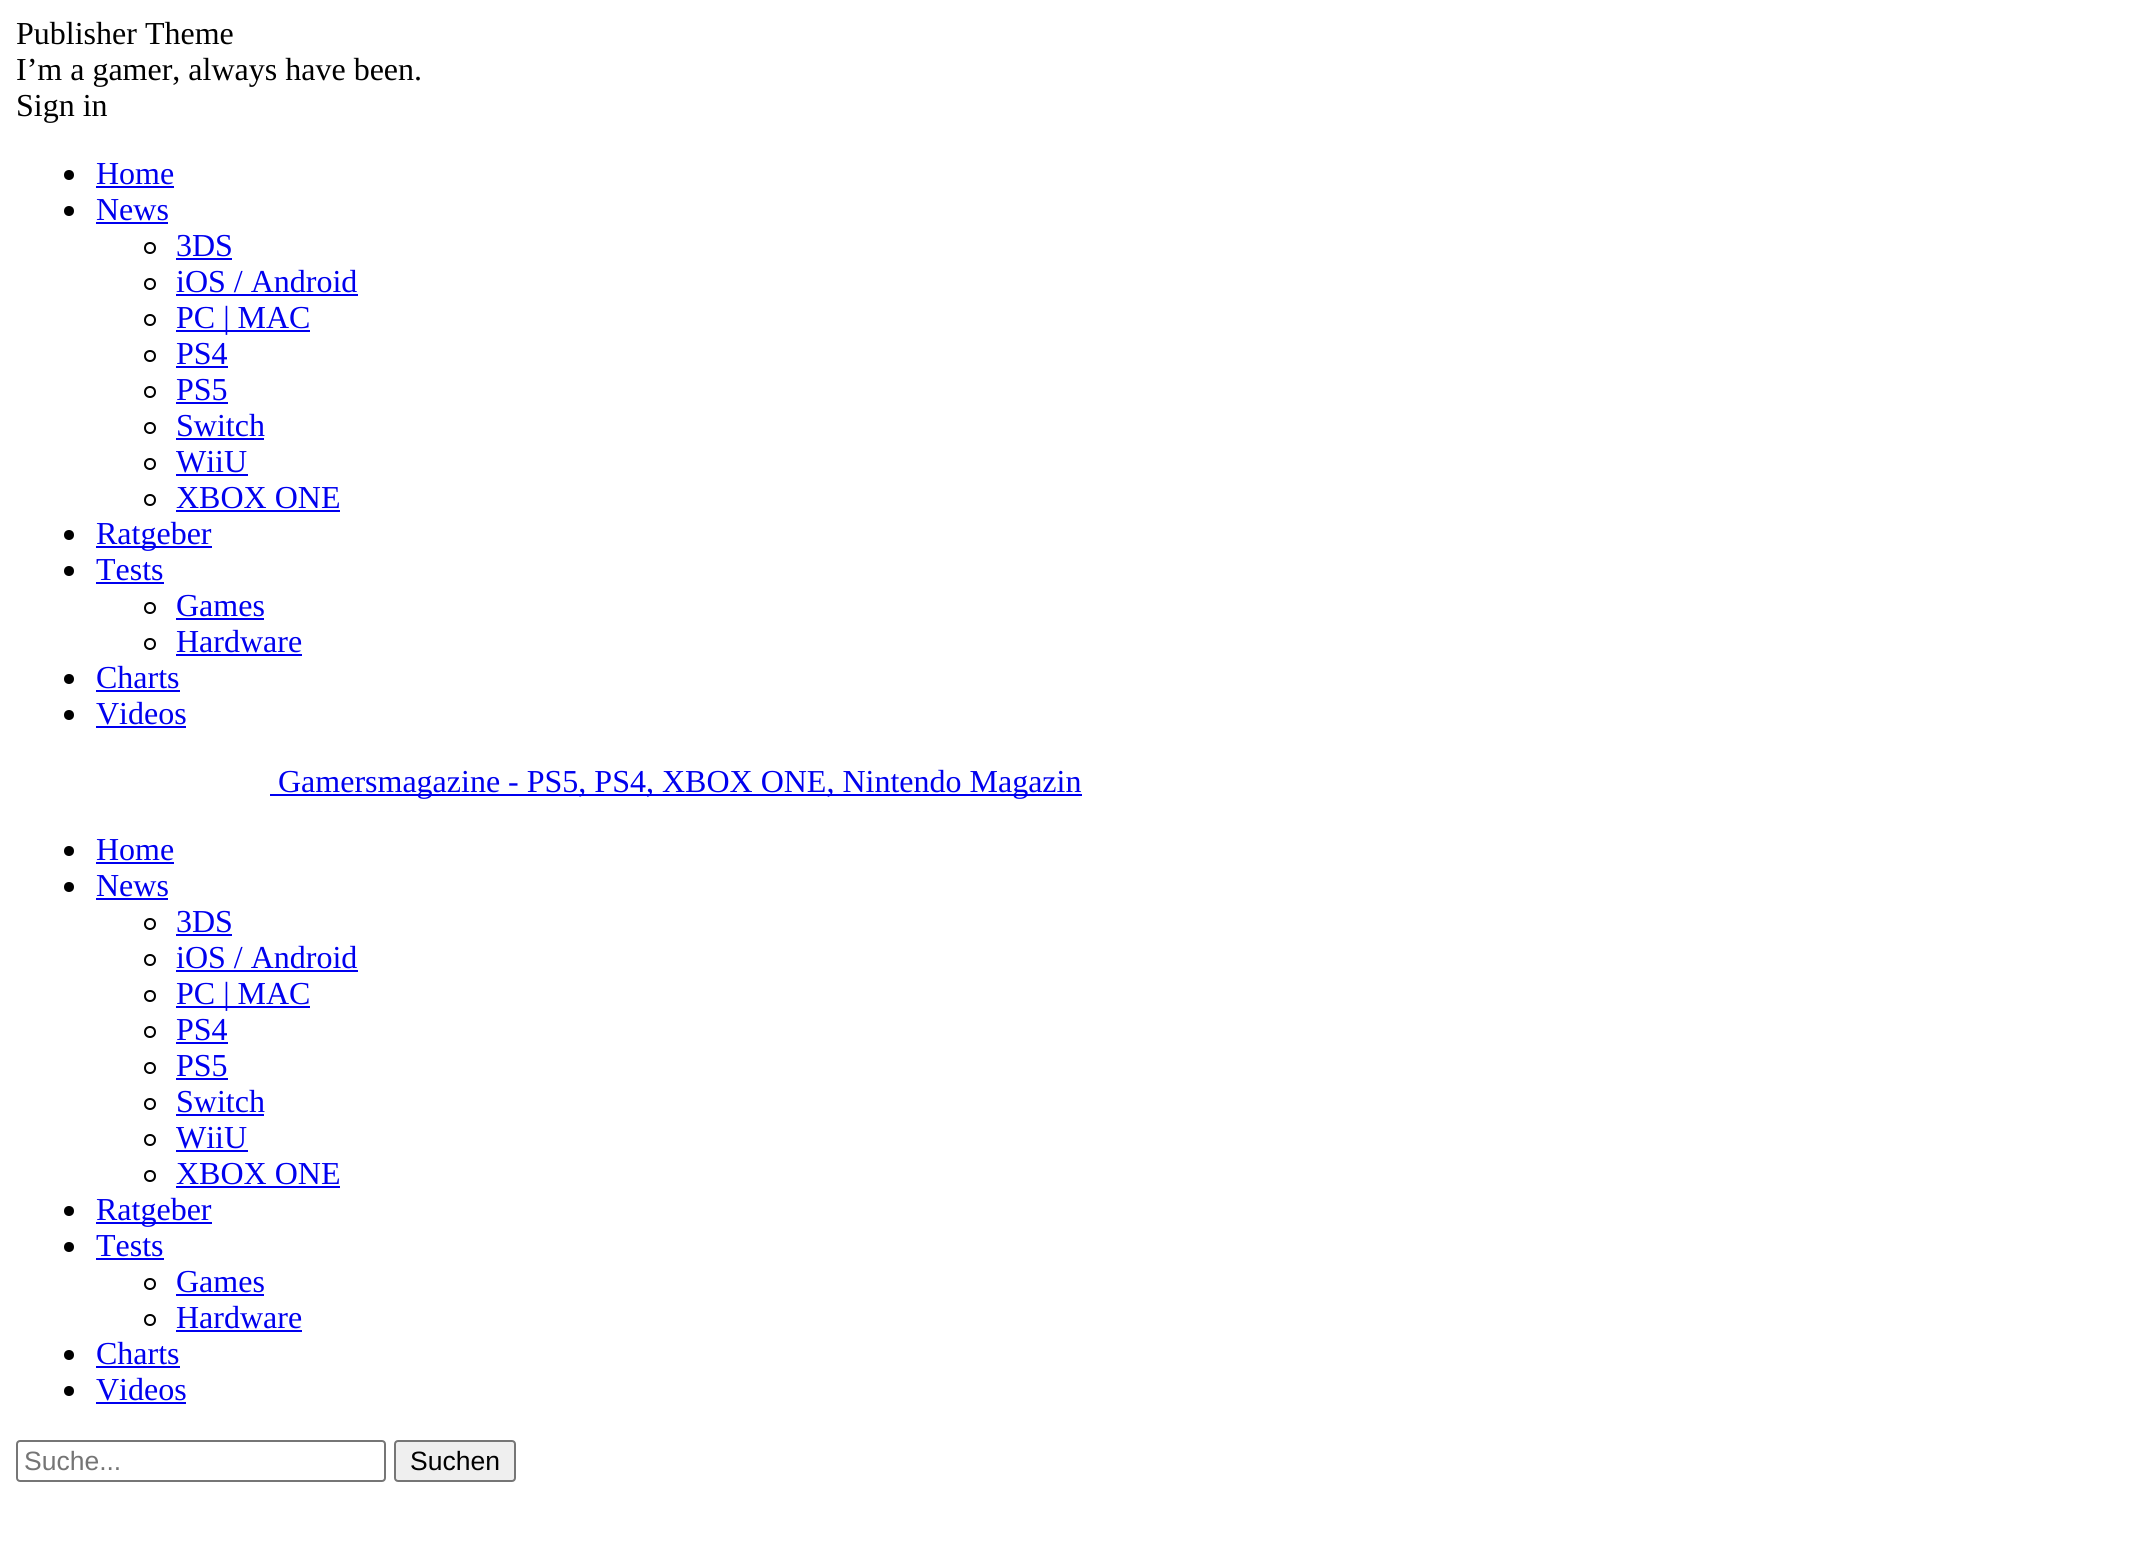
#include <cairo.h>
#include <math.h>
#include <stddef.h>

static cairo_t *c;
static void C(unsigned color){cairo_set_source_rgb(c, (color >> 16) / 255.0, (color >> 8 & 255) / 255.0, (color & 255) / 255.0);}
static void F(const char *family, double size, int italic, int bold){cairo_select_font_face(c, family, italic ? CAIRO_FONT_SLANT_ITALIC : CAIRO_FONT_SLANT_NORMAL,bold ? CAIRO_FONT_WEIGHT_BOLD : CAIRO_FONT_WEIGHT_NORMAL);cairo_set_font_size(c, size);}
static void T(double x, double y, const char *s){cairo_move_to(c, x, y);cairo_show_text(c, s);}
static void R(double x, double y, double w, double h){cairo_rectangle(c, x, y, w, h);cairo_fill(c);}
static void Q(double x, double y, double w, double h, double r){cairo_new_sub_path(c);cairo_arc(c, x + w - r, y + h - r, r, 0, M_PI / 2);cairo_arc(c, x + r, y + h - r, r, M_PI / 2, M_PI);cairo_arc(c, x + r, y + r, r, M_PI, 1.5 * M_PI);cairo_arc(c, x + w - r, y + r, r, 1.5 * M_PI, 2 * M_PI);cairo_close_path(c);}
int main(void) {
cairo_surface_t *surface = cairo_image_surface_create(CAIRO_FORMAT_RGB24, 2148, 1546);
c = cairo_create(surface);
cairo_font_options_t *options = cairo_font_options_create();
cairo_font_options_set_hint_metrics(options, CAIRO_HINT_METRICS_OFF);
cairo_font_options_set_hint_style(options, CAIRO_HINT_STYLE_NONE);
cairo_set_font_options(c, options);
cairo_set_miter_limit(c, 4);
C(0xffffff);
cairo_paint(c);
F("Liberation Serif",32,0,0);
C(0x000000);
T(16,44,"Publisher Theme");
T(16,80,"I’m a gamer, always have been.");
T(16,116,"Sign in");
cairo_new_path(c);
cairo_arc(c,69,175,5,0,2 * M_PI);
cairo_fill(c);
C(0x0000ee);
T(96,184,"Home");
R(96,186,78,2);
C(0x000000);
cairo_new_path(c);
cairo_arc(c,69,211,5,0,2 * M_PI);
cairo_fill(c);
C(0x0000ee);
T(96,220,"News");
R(96,222,72,2);
cairo_new_path(c);
cairo_arc(c,150,248,5,0,2 * M_PI);
C(0x000000);
cairo_stroke(c);
C(0x0000ee);
T(176,256,"3DS");
R(176,258,56,2);
cairo_new_path(c);
cairo_arc(c,150,284,5,0,2 * M_PI);
C(0x000000);
cairo_stroke(c);
C(0x0000ee);
T(176,292,"iOS / Android");
R(176,294,182,2);
cairo_new_path(c);
cairo_arc(c,150,320,5,0,2 * M_PI);
C(0x000000);
cairo_stroke(c);
C(0x0000ee);
R(176,330,134,2);
T(176,328,"PC | MAC");
cairo_new_path(c);
cairo_arc(c,150,356,5,0,2 * M_PI);
C(0x000000);
cairo_stroke(c);
C(0x0000ee);
T(176,364,"PS4");
R(176,366,52,2);
cairo_new_path(c);
cairo_arc(c,150,392,5,0,2 * M_PI);
C(0x000000);
cairo_stroke(c);
C(0x0000ee);
T(176,400,"PS5");
R(176,402,52,2);
cairo_new_path(c);
cairo_arc(c,150,428,5,0,2 * M_PI);
C(0x000000);
cairo_stroke(c);
C(0x0000ee);
T(176,436,"Switch");
R(176,438,88,2);
cairo_new_path(c);
cairo_arc(c,150,464,5,0,2 * M_PI);
C(0x000000);
cairo_stroke(c);
C(0x0000ee);
T(176,472,"WiiU");
R(176,474,72,2);
cairo_new_path(c);
cairo_arc(c,150,500,5,0,2 * M_PI);
C(0x000000);
cairo_stroke(c);
C(0x0000ee);
T(176,508,"XBOX ONE");
R(176,510,164,2);
C(0x000000);
cairo_new_path(c);
cairo_arc(c,69,535,5,0,2 * M_PI);
cairo_fill(c);
C(0x0000ee);
R(96,546,116,2);
T(96,544,"Ratgeber");
C(0x000000);
cairo_new_path(c);
cairo_arc(c,69,571,5,0,2 * M_PI);
cairo_fill(c);
C(0x0000ee);
T(96,580,"Tests");
R(96,582,68,2);
cairo_new_path(c);
cairo_arc(c,150,608,5,0,2 * M_PI);
C(0x000000);
cairo_stroke(c);
C(0x0000ee);
T(176,616,"Games");
R(176,618,88,2);
cairo_new_path(c);
cairo_arc(c,150,644,5,0,2 * M_PI);
C(0x000000);
cairo_stroke(c);
C(0x0000ee);
T(176,652,"Hardware");
R(176,654,126,2);
C(0x000000);
cairo_new_path(c);
cairo_arc(c,69,679,5,0,2 * M_PI);
cairo_fill(c);
C(0x0000ee);
T(96,688,"Charts");
R(96,690,84,2);
C(0x000000);
cairo_new_path(c);
cairo_arc(c,69,715,5,0,2 * M_PI);
cairo_fill(c);
C(0x0000ee);
T(96,724,"Videos");
R(96,726,90,2);
R(270,794,812,2);
T(278,792,"Gamersmagazine - PS5, PS4, XBOX ONE, Nintendo Magazin");
C(0x000000);
cairo_new_path(c);
cairo_arc(c,69,851,5,0,2 * M_PI);
cairo_fill(c);
C(0x0000ee);
T(96,860,"Home");
R(96,862,78,2);
C(0x000000);
cairo_new_path(c);
cairo_arc(c,69,887,5,0,2 * M_PI);
cairo_fill(c);
C(0x0000ee);
T(96,896,"News");
R(96,898,72,2);
cairo_new_path(c);
cairo_arc(c,150,924,5,0,2 * M_PI);
C(0x000000);
cairo_stroke(c);
C(0x0000ee);
T(176,932,"3DS");
R(176,934,56,2);
cairo_new_path(c);
cairo_arc(c,150,960,5,0,2 * M_PI);
C(0x000000);
cairo_stroke(c);
C(0x0000ee);
T(176,968,"iOS / Android");
R(176,970,182,2);
cairo_new_path(c);
cairo_arc(c,150,996,5,0,2 * M_PI);
C(0x000000);
cairo_stroke(c);
C(0x0000ee);
R(176,1006,134,2);
T(176,1004,"PC | MAC");
cairo_new_path(c);
cairo_arc(c,150,1032,5,0,2 * M_PI);
C(0x000000);
cairo_stroke(c);
C(0x0000ee);
T(176,1040,"PS4");
R(176,1042,52,2);
cairo_new_path(c);
cairo_arc(c,150,1068,5,0,2 * M_PI);
C(0x000000);
cairo_stroke(c);
C(0x0000ee);
T(176,1076,"PS5");
R(176,1078,52,2);
cairo_new_path(c);
cairo_arc(c,150,1104,5,0,2 * M_PI);
C(0x000000);
cairo_stroke(c);
C(0x0000ee);
T(176,1112,"Switch");
R(176,1114,88,2);
cairo_new_path(c);
cairo_arc(c,150,1140,5,0,2 * M_PI);
C(0x000000);
cairo_stroke(c);
C(0x0000ee);
T(176,1148,"WiiU");
R(176,1150,72,2);
cairo_new_path(c);
cairo_arc(c,150,1176,5,0,2 * M_PI);
C(0x000000);
cairo_stroke(c);
C(0x0000ee);
T(176,1184,"XBOX ONE");
R(176,1186,164,2);
C(0x000000);
cairo_new_path(c);
cairo_arc(c,69,1211,5,0,2 * M_PI);
cairo_fill(c);
C(0x0000ee);
R(96,1222,116,2);
T(96,1220,"Ratgeber");
C(0x000000);
cairo_new_path(c);
cairo_arc(c,69,1247,5,0,2 * M_PI);
cairo_fill(c);
C(0x0000ee);
T(96,1256,"Tests");
R(96,1258,68,2);
cairo_new_path(c);
cairo_arc(c,150,1284,5,0,2 * M_PI);
C(0x000000);
cairo_stroke(c);
C(0x0000ee);
T(176,1292,"Games");
R(176,1294,88,2);
cairo_new_path(c);
cairo_arc(c,150,1320,5,0,2 * M_PI);
C(0x000000);
cairo_stroke(c);
C(0x0000ee);
T(176,1328,"Hardware");
R(176,1330,126,2);
C(0x000000);
cairo_new_path(c);
cairo_arc(c,69,1355,5,0,2 * M_PI);
cairo_fill(c);
C(0x0000ee);
T(96,1364,"Charts");
R(96,1366,84,2);
C(0x000000);
cairo_new_path(c);
cairo_arc(c,69,1391,5,0,2 * M_PI);
cairo_fill(c);
C(0x0000ee);
T(96,1400,"Videos");
R(96,1402,90,2);
Q(17,1441,368,40,3);
C(0x767676);
cairo_stroke(c);
F("Liberation Sans",26.5,0,0);
C(0x757575);
T(24,1470,"Suche...");
C(0xefefef);
Q(395,1441,120,40,3);
cairo_fill_preserve(c);
C(0x767676);
cairo_stroke(c);
C(0x000000);
T(410,1470,"Suchen");
cairo_surface_write_to_png(surface, "o.png");
cairo_font_options_destroy(options);
cairo_destroy(c);
cairo_surface_destroy(surface);
return 0;
}
